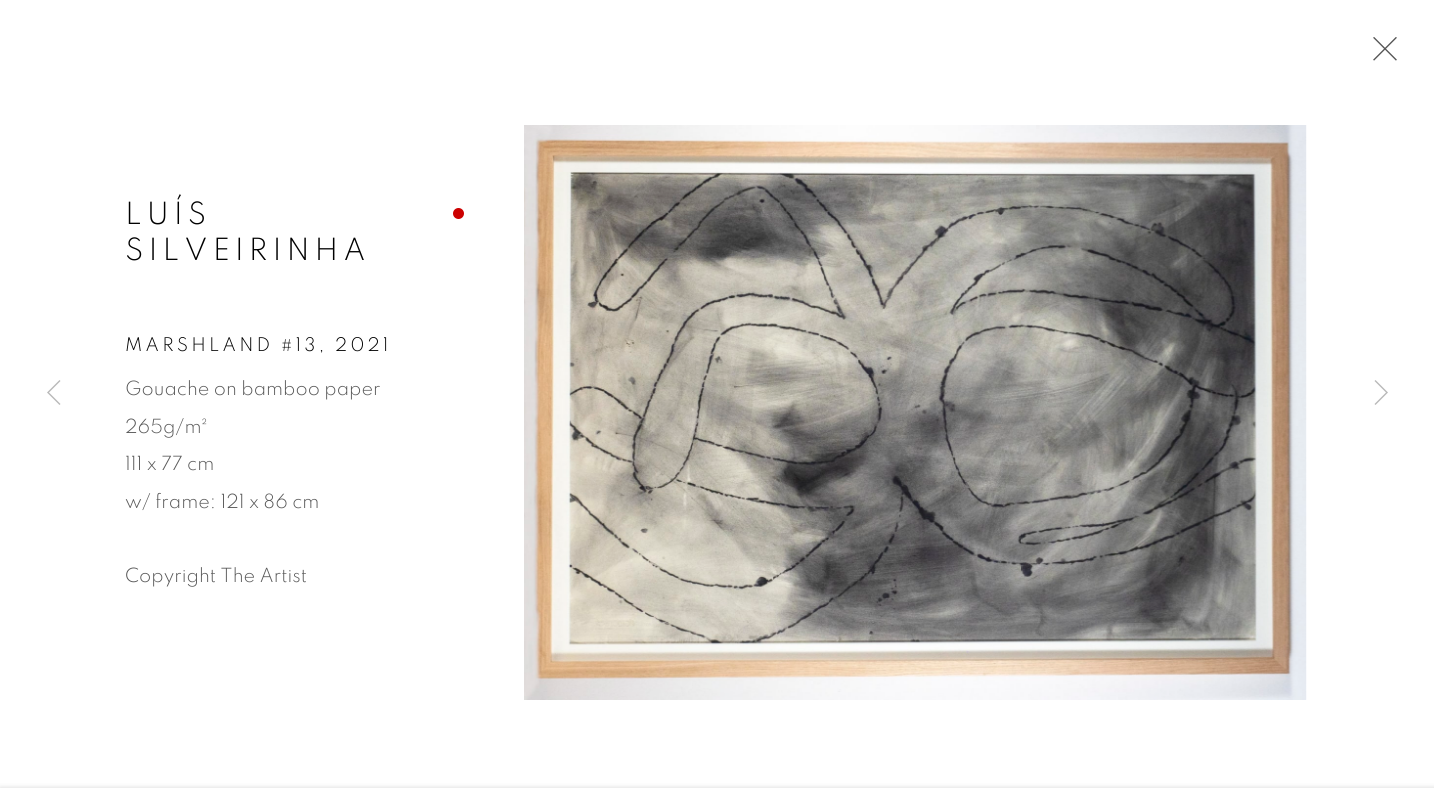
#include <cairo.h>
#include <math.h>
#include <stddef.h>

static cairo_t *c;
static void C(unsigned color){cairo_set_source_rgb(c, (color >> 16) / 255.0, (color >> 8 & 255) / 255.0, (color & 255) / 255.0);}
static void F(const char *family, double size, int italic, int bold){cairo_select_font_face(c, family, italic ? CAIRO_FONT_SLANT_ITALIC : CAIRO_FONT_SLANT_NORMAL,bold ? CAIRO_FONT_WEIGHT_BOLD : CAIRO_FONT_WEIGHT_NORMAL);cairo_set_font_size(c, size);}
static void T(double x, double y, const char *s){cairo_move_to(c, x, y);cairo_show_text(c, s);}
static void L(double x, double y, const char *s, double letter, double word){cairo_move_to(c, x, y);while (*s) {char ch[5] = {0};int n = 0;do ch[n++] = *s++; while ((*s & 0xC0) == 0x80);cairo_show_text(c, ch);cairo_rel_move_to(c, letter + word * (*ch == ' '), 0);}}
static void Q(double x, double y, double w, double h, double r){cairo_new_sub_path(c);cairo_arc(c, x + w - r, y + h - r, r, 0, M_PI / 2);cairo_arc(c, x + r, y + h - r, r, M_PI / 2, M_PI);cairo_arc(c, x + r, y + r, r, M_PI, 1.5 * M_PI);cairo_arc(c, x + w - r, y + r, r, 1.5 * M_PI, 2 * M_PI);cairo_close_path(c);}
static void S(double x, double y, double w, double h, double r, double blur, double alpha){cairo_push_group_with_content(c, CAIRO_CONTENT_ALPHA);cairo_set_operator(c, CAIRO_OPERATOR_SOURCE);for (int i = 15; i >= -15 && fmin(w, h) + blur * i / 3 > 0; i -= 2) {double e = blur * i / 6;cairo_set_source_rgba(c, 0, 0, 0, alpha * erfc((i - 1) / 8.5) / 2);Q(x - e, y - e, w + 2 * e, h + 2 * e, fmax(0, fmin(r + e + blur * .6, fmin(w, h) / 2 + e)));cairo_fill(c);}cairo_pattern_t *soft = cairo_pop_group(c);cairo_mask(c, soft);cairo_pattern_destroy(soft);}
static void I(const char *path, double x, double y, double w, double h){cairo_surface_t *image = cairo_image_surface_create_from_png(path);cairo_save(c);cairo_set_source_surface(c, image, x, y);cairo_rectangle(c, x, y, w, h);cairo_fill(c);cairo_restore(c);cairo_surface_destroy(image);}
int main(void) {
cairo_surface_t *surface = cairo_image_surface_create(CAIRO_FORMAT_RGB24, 1434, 788);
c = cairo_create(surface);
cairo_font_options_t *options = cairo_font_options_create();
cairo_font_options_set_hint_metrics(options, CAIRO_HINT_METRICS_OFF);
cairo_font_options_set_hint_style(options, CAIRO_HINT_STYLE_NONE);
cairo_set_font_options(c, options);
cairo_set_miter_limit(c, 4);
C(0xffffff);
cairo_paint(c);
I("1.png",1373,37,24,24);
F("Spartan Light",31.5,0,0);
C(0x010101);
L(125,224,"LUÍS",5,0);
L(125,260,"SILVEIRINHA",5,0);
C(0xcc0000);
cairo_new_path(c);
cairo_arc(c,458.5,213.5,5.5,0,2 * M_PI);
cairo_fill(c);
F("Spartan Light",19.4,0,0);
C(0x010101);
L(125,351,"MARSHLAND #13, 2021",3.1,0);
F("Spartan Light",20.1,0,0);
C(0x585858);
T(125,395,"Gouache on bamboo paper");
T(125,433,"265g/m²");
T(125,470,"111 x 77 cm");
T(125,508,"w/ frame: 121 x 86 cm");
T(125,582,"Copyright The Artist");
I("2.png",524,125,783,575);
C(0xb9b9b9);
cairo_new_path(c);
cairo_move_to(c,48,393.5);
cairo_line_to(c,59.5,405);
cairo_line_to(c,60.5,404);
cairo_line_to(c,49,392.5);
cairo_line_to(c,60.5,381);
cairo_line_to(c,59.5,380);
cairo_line_to(c,47,392.5);
cairo_close_path(c);
cairo_fill(c);
cairo_new_path(c);
cairo_move_to(c,1388,392.5);
cairo_line_to(c,1375.5,380);
cairo_line_to(c,1374.5,381);
cairo_line_to(c,1386,392.5);
cairo_line_to(c,1374.5,404);
cairo_line_to(c,1375.5,405);
cairo_close_path(c);
cairo_fill(c);
C(0x000000);
S(0,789,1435,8,0,3,.23);
cairo_surface_write_to_png(surface, "o.png");
cairo_font_options_destroy(options);
cairo_destroy(c);
cairo_surface_destroy(surface);
return 0;
}
